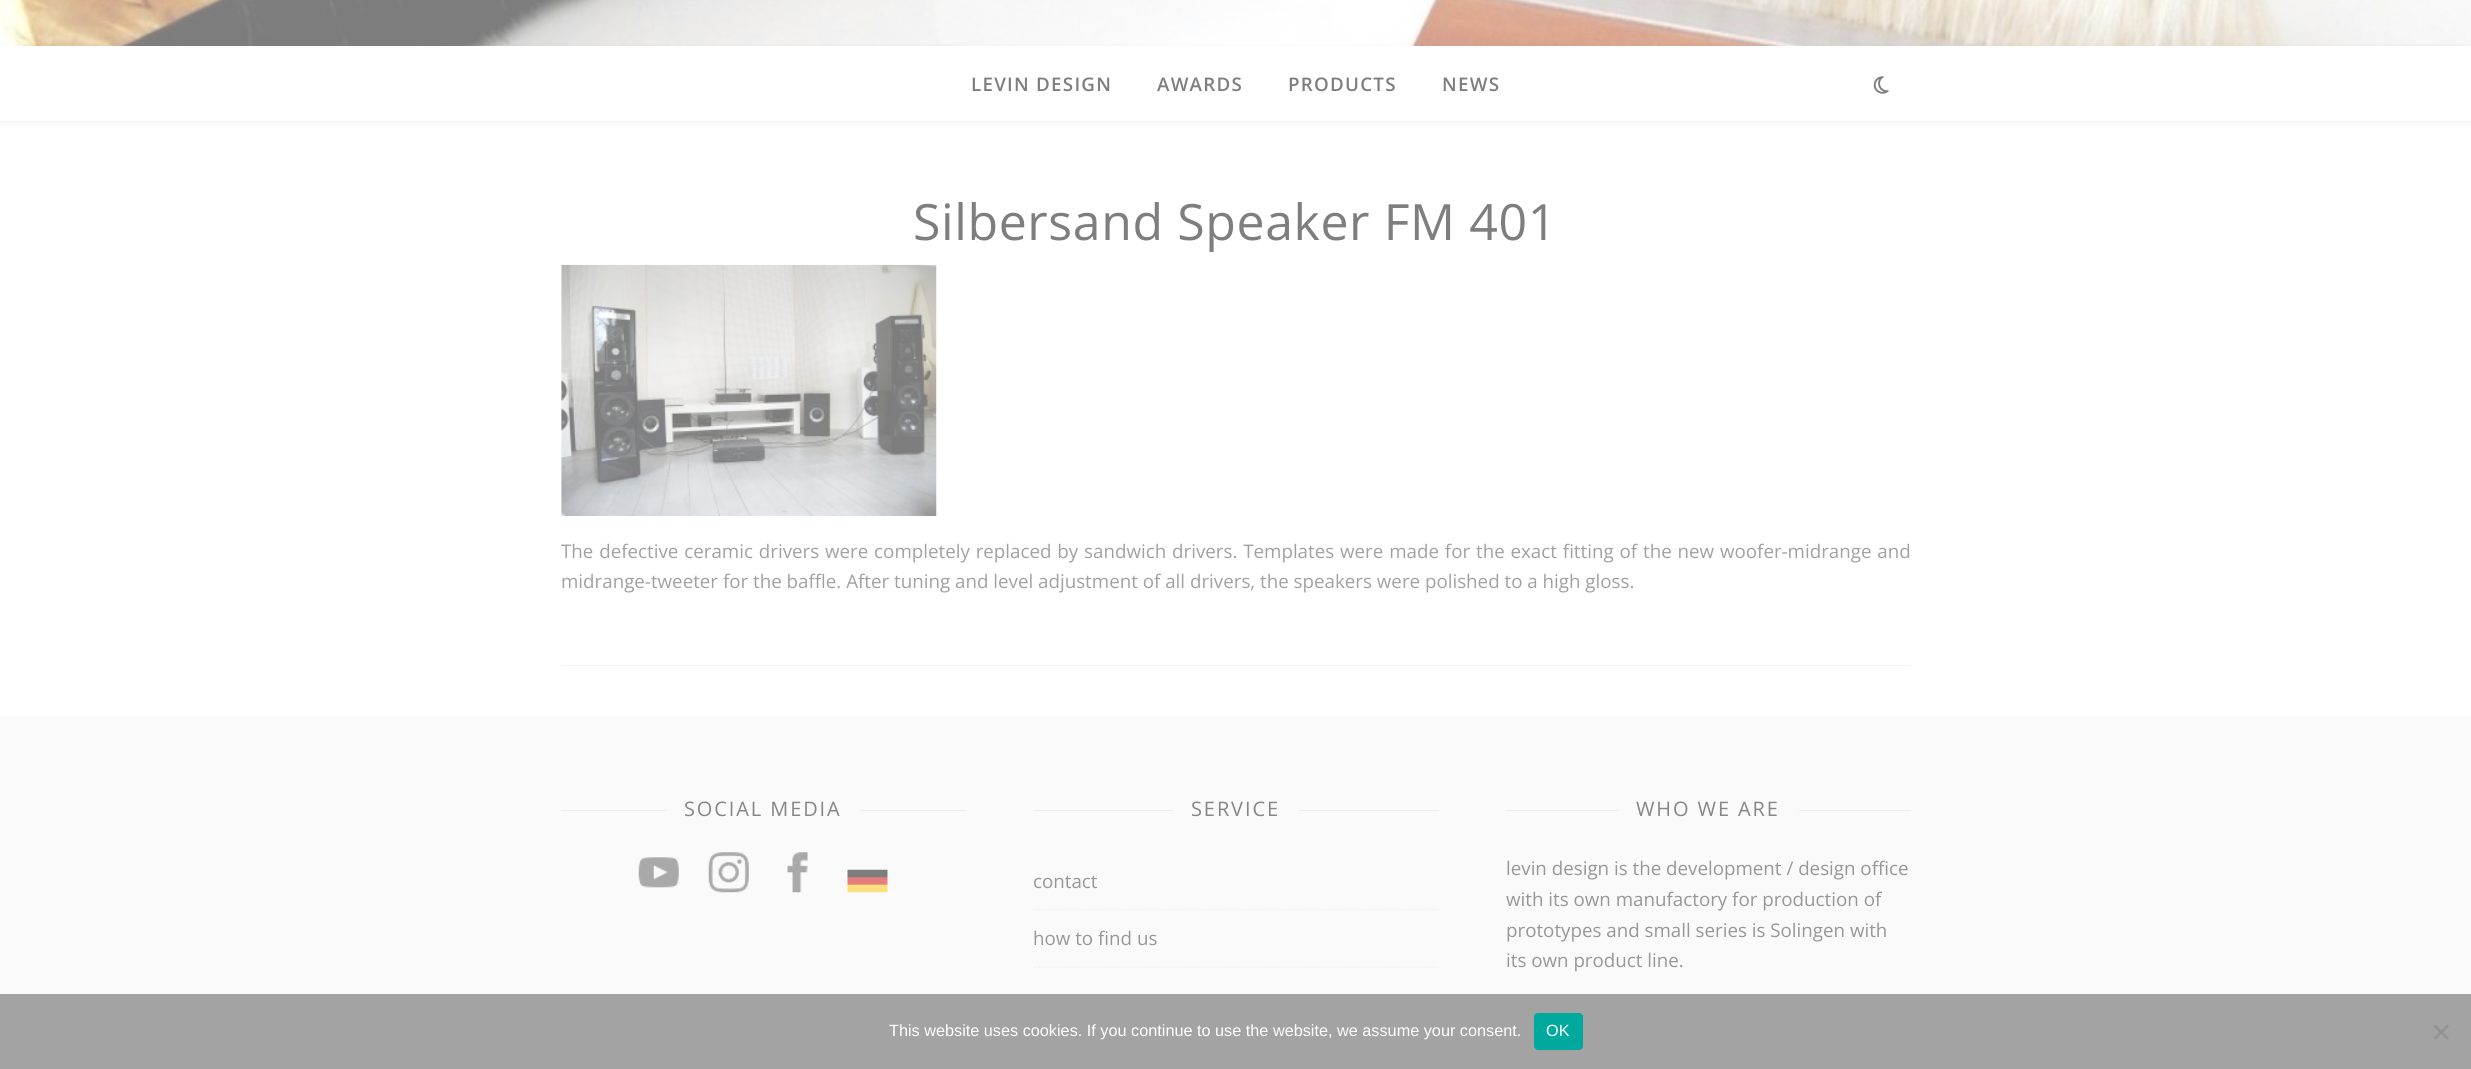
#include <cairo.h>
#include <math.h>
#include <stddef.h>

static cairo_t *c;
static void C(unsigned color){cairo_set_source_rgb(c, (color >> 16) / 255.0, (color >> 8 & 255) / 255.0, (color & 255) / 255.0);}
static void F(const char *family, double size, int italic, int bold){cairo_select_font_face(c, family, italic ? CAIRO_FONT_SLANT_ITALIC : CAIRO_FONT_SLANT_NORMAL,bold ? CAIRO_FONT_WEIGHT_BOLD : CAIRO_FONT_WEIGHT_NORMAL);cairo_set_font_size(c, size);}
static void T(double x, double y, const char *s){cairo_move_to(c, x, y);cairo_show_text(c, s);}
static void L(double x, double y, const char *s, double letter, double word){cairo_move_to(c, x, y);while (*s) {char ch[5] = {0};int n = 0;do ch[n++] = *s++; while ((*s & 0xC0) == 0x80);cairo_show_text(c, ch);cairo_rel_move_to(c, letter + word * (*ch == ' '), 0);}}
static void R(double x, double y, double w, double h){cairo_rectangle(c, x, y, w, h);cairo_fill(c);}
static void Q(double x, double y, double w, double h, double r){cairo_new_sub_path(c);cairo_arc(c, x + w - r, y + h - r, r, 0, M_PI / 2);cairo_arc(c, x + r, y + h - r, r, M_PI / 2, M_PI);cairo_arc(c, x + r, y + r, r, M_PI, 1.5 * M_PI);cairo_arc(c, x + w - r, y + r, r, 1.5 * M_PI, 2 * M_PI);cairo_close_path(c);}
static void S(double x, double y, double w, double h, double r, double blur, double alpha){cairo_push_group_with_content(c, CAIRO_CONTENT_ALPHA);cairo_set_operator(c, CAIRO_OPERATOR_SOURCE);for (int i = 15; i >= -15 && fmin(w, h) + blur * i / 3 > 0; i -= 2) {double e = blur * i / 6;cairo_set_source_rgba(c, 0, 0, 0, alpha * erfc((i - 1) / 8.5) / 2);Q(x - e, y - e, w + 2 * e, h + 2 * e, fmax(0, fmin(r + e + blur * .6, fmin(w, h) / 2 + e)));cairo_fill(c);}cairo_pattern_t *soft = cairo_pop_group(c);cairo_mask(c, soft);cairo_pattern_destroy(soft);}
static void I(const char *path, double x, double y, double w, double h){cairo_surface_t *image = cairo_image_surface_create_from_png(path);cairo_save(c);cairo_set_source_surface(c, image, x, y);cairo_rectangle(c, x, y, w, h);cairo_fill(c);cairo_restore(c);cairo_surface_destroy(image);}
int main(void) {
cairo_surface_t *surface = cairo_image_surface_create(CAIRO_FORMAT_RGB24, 2471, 1069);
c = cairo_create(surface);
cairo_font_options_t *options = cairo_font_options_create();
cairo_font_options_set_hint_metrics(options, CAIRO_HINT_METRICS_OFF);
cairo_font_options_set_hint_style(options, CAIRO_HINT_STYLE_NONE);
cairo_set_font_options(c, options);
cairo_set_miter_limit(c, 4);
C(0xffffff);
cairo_paint(c);
I("1.png",0,0,2471,46);
C(0x7d7d7d);
S(0,48,2471,75,0,3,.1);
C(0xffffff);
R(0,46,2471,75);
F("Open Sans SemiBold",18.75,0,0);
C(0x7e7e7e);
L(971,91,"LEVIN DESIGN",1.25,0);
L(1157,91,"AWARDS",1.25,0);
L(1288,91,"PRODUCTS",1.25,0);
L(1442,91,"NEWS",1.25,0);
I("2.png",1873,76,16,18);
F("Open Sans",50,0,0);
L(913,240,"Silbersand Speaker FM 401",.6,0);
I("3.png",561,264,376,252);
F("Open Sans",18.75,0,0);
C(0xa1a1a1);
L(561,558,"The defective ceramic drivers were completely replaced by sandwich drivers. Templates were made for the exact fitting of the new woofer-midrange and",0,1);
T(561,588,"midrange-tweeter for the baffle. After tuning and level adjustment of all drivers, the speakers were polished to a high gloss.");
C(0xf3f3f3);
R(561,665,1350,1);
C(0xfafafa);
R(0,716,2471,278);
C(0xefeded);
R(561,810,105,1);
F("Open Sans",20,0,0);
C(0x868686);
L(684,816,"SOCIAL MEDIA",1.9,0);
C(0xefeded);
R(860,810,106,1);
I("4.png",638,857,41,31);
I("5.png",708,852,41,41);
I("6.png",787,852,21,41);
I("7.png",847,869,41,24);
R(1034,810,139,1);
C(0x868686);
L(1191,816,"SERVICE",1.9,0);
C(0xefeded);
R(1299,810,140,1);
cairo_new_path(c);
cairo_move_to(c,1034,909.5);
cairo_line_to(c,1439,909.5);
cairo_set_line_width(c,1.2);
cairo_set_dash(c,(double[]){1.25,1.25},2,0);
cairo_stroke(c);
F("Open Sans",18.75,0,0);
C(0x979797);
T(1033,888,"contact");
cairo_new_path(c);
cairo_move_to(c,1034,967);
cairo_line_to(c,1439,967);
C(0xefeded);
cairo_stroke(c);
C(0x979797);
T(1033,945,"how to find us");
C(0xefeded);
R(1506,810,112,1);
F("Open Sans",20,0,0);
C(0x868686);
L(1636,816,"WHO WE ARE",1.9,0);
C(0xefeded);
R(1799,810,112,1);
F("Open Sans",18.75,0,0);
C(0x979797);
T(1506,875,"levin design is the development / design office");
T(1506,906,"with its own manufactory for production of");
T(1506,937,"prototypes and small series is Solingen with");
T(1506,967,"its own product line.");
C(0xa3a3a3);
R(0,994,2471,75);
F("Liberation Sans",16.25,0,0);
C(0xffffff);
T(889,1036,"This website uses cookies. If you continue to use the website, we assume your consent.");
C(0x00a99d);
Q(1534,1013,49,37,4);
cairo_fill(c);
C(0xffffff);
T(1546,1036,"OK");
C(0x929292);
cairo_new_path(c);
cairo_move_to(c,2447,1024.5);
cairo_line_to(c,2449,1026.5);
cairo_line_to(c,2435.5,1039.5);
cairo_line_to(c,2433.5,1038);
cairo_close_path(c);
cairo_fill(c);
cairo_new_path(c);
cairo_move_to(c,2433.5,1026.5);
cairo_line_to(c,2435.5,1024.5);
cairo_line_to(c,2449,1038);
cairo_line_to(c,2447,1039.5);
cairo_close_path(c);
cairo_fill(c);
cairo_surface_write_to_png(surface, "o.png");
cairo_font_options_destroy(options);
cairo_destroy(c);
cairo_surface_destroy(surface);
return 0;
}
